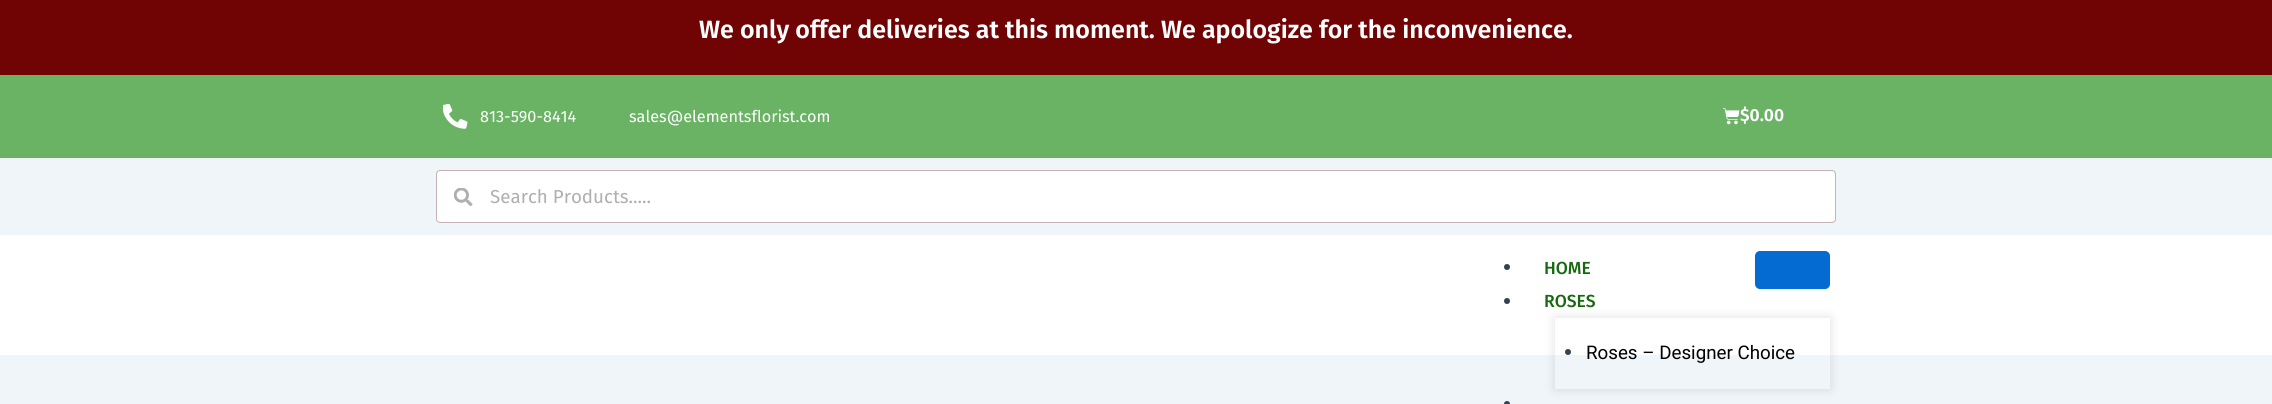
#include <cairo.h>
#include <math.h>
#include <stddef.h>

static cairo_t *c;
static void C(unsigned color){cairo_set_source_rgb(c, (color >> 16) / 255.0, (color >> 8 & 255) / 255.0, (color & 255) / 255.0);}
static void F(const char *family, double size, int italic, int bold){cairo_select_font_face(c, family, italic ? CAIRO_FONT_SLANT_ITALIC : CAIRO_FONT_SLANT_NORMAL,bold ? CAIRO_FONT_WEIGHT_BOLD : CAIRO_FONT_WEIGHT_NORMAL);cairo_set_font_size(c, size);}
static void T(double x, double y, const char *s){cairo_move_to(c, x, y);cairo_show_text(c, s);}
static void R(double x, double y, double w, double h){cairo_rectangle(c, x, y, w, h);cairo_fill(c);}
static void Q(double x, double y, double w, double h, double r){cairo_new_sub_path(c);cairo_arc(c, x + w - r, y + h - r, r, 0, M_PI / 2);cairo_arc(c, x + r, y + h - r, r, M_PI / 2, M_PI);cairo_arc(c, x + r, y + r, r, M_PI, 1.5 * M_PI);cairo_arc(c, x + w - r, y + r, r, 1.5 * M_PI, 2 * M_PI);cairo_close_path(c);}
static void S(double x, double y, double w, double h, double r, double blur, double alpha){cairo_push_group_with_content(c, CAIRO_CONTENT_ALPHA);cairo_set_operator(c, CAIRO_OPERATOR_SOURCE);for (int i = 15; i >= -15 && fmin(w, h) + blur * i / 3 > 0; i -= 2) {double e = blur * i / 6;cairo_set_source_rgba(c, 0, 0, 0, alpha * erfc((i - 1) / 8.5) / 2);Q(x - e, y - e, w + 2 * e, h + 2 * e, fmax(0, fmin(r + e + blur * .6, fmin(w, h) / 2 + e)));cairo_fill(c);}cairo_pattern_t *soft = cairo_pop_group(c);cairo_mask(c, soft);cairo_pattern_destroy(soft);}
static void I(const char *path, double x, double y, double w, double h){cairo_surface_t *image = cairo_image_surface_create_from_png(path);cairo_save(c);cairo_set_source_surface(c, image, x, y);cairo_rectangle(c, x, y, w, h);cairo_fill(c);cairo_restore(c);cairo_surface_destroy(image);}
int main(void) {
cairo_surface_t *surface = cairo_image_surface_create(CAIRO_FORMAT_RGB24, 2272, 404);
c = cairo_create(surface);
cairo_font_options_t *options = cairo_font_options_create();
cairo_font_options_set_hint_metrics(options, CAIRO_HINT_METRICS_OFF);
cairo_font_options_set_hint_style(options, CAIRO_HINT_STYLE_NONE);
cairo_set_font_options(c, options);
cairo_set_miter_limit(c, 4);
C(0xf0f5fa);
cairo_paint(c);
C(0x700303);
R(0,0,2272,75);
F("Fira Sans SemiBold",25,0,0);
C(0xffffff);
T(699,38,"We only offer deliveries at this moment. We apologize for the inconvenience.");
C(0x6ab365);
R(0,75,2272,83);
I("1.png",443,104,25,25);
F("Fira Sans",16.25,0,0);
C(0xffffff);
T(480,122,"813-590-8414");
T(629,122,"sales@elementsflorist.com");
I("2.png",1723,108,17,17);
F("Fira Sans SemiBold",17.5,0,0);
T(1740,121,"$0.00");
Q(436.5,170.5,1399,52,3.5);
cairo_fill_preserve(c);
C(0xc5b2b2);
cairo_set_line_width(c,1);
cairo_stroke(c);
I("3.png",454,188,19,18);
F("Fira Sans",18.75,0,0);
C(0xafafaf);
T(490,203,"Search Products.....");
C(0xffffff);
R(0,235,2272,120);
C(0x000000);
S(1755,253,75,37,5,1,.05);
C(0x046bd2);
Q(1755,251,75,38,5);
cairo_fill(c);
C(0x334155);
cairo_arc(c,1507,267,3,0,2 * M_PI);
cairo_fill(c);
F("Fira Sans Medium",17.5,0,0);
C(0x16690f);
T(1544,274,"HOME");
C(0x334155);
cairo_new_path(c);
cairo_arc(c,1507,301,3,0,2 * M_PI);
cairo_fill(c);
cairo_save(c);
cairo_set_fill_rule(c,CAIRO_FILL_RULE_EVEN_ODD);
cairo_new_path(c);
cairo_move_to(c,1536,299);
cairo_line_to(c,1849,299);
cairo_line_to(c,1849,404);
cairo_line_to(c,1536,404);
cairo_close_path(c);
cairo_move_to(c,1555,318);
cairo_line_to(c,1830,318);
cairo_line_to(c,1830,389);
cairo_line_to(c,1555,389);
cairo_close_path(c);
cairo_clip(c);
C(0x000000);
S(1555,318,275,71,0,6,.12);
cairo_restore(c);
C(0x16690f);
T(1544,307,"ROSES");
C(0x334155);
cairo_new_path(c);
cairo_arc(c,1568,352,3,0,2 * M_PI);
cairo_fill(c);
F("Roboto",18.75,0,0);
C(0x000000);
T(1586,359,"Roses – Designer Choice");
C(0x334155);
cairo_new_path(c);
cairo_arc(c,1507,404,3,0,2 * M_PI);
cairo_fill(c);
cairo_surface_write_to_png(surface, "o.png");
cairo_font_options_destroy(options);
cairo_destroy(c);
cairo_surface_destroy(surface);
return 0;
}
